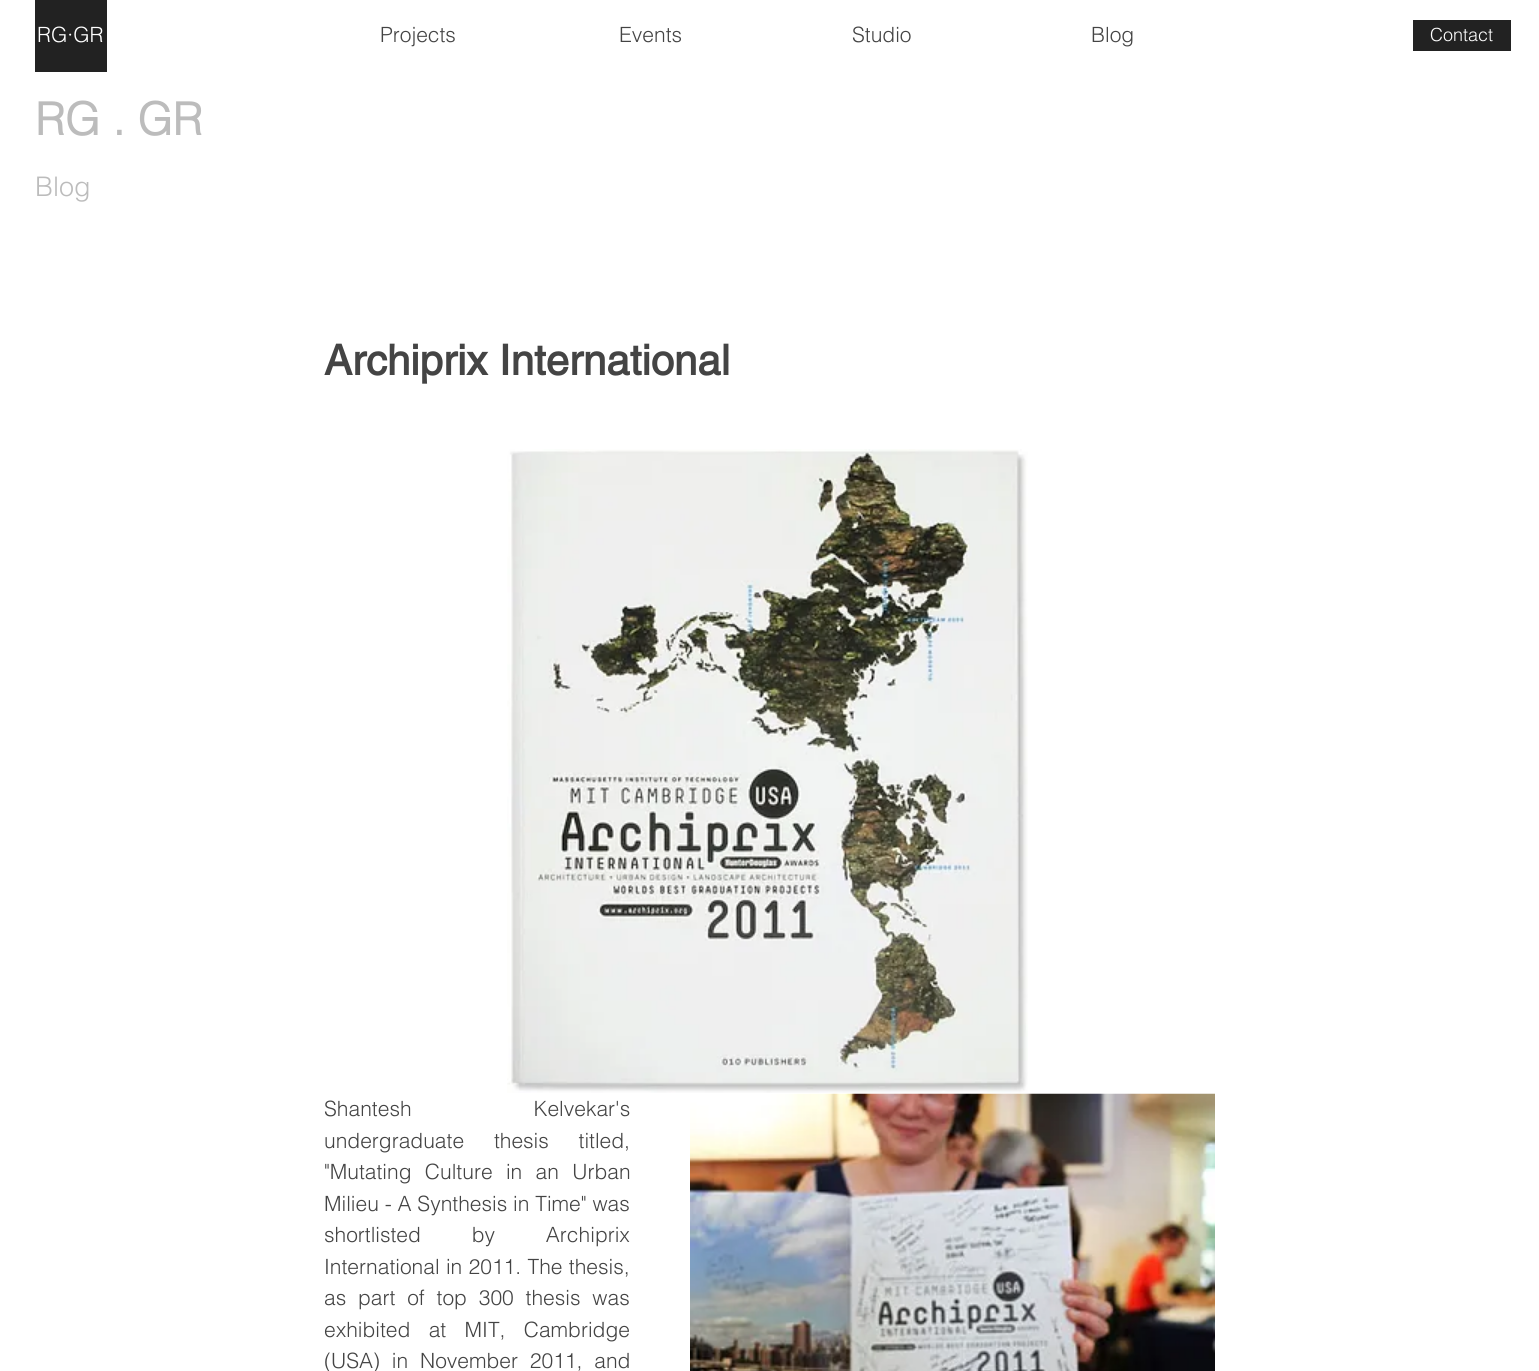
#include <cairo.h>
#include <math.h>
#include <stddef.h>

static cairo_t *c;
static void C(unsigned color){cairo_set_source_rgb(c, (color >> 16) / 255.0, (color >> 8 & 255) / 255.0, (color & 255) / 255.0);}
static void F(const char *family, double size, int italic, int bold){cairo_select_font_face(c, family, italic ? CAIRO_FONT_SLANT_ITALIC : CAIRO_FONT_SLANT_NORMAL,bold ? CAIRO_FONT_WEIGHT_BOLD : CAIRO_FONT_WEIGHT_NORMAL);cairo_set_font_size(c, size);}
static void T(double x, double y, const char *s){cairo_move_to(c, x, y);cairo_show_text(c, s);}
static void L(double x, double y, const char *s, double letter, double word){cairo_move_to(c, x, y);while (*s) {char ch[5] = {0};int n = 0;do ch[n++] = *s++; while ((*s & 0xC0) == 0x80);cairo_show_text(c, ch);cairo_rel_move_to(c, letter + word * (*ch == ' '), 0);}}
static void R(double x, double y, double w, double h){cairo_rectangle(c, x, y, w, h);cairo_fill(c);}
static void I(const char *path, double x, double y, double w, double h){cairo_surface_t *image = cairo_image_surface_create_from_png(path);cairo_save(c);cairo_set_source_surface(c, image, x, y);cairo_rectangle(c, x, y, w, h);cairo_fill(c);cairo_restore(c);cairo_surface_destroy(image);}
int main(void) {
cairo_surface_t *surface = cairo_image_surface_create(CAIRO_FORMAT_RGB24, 1539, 1371);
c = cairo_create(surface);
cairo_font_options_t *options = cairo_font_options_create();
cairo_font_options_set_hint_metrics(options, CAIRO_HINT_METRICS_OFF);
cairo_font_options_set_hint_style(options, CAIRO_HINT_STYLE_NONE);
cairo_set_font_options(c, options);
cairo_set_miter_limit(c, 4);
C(0xffffff);
cairo_paint(c);
C(0x222222);
R(35,0,72,72);
F("helvetica Light",21,0,0);
C(0xffffff);
T(37,42,"RG·GR");
C(0x444444);
T(380,42,"Projects");
T(619,42,"Events");
T(852,42,"Studio");
T(1091,42,"Blog");
C(0x222222);
R(1413,20,98,31);
F("helvetica Light",18,0,0);
C(0xffffff);
T(1430,41,"Contact");
F("helvetica",45,0,1);
C(0xbcbcbc);
T(35,135,"RG . GR");
F("helvetica Light",27,0,0);
T(35,196,"Blog");
F("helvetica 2",42,0,1);
C(0x444444);
T(324,375,"Archiprix International");
I("1.png",507,449,521,644);
F("helvetica Light",21,0,0);
L(324,1116,"Shantesh Kelvekar's",0,116);
L(324,1148,"undergraduate thesis titled,",0,24);
L(324,1179,"\"Mutating Culture in an Urban",0,7.5);
T(324,1211,"Milieu - A Synthesis in Time\" was");
L(324,1242,"shortlisted by Archiprix",0,45);
L(324,1274,"International in 2011. The thesis,",0,.5);
L(324,1305,"as part of top 300 thesis was",0,6);
L(324,1337,"exhibited at MIT, Cambridge",0,12.5);
L(324,1368,"(USA) in November 2011, and",0,6);
I("2.png",690,1093,525,278);
cairo_surface_write_to_png(surface, "o.png");
cairo_font_options_destroy(options);
cairo_destroy(c);
cairo_surface_destroy(surface);
return 0;
}
